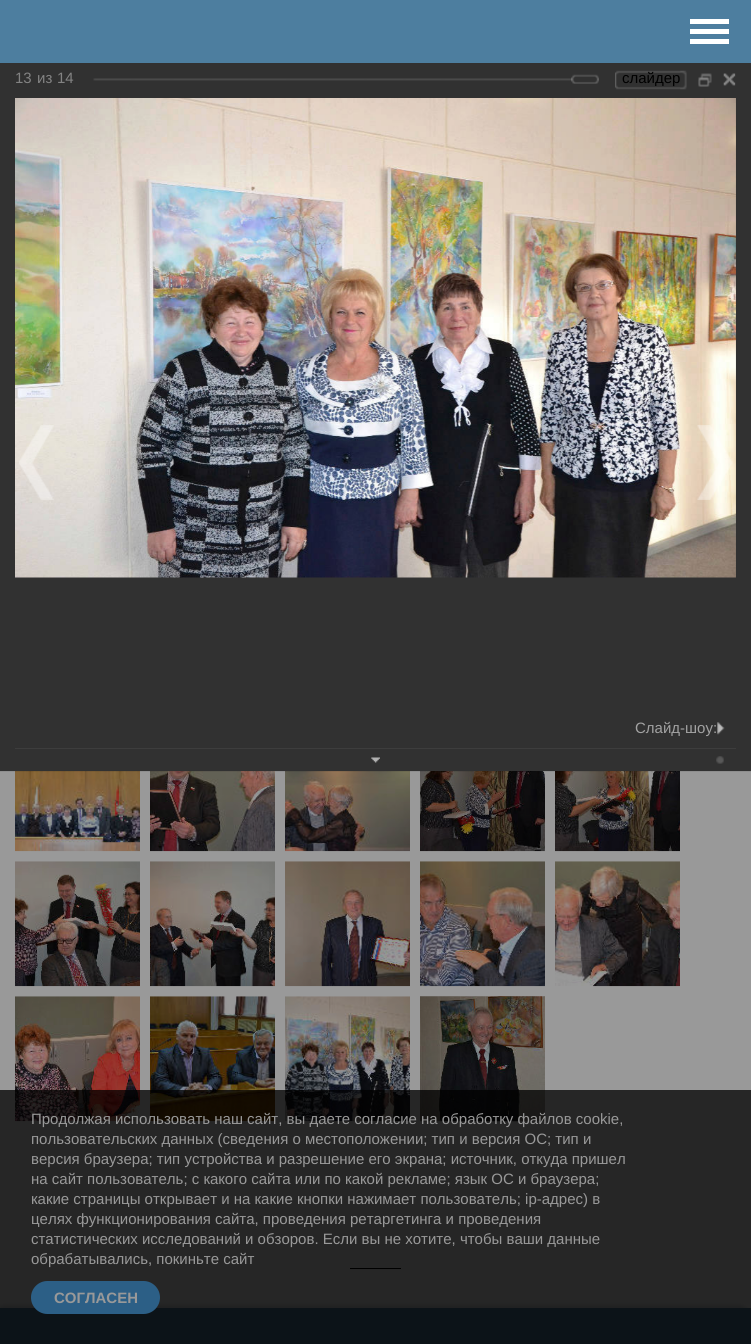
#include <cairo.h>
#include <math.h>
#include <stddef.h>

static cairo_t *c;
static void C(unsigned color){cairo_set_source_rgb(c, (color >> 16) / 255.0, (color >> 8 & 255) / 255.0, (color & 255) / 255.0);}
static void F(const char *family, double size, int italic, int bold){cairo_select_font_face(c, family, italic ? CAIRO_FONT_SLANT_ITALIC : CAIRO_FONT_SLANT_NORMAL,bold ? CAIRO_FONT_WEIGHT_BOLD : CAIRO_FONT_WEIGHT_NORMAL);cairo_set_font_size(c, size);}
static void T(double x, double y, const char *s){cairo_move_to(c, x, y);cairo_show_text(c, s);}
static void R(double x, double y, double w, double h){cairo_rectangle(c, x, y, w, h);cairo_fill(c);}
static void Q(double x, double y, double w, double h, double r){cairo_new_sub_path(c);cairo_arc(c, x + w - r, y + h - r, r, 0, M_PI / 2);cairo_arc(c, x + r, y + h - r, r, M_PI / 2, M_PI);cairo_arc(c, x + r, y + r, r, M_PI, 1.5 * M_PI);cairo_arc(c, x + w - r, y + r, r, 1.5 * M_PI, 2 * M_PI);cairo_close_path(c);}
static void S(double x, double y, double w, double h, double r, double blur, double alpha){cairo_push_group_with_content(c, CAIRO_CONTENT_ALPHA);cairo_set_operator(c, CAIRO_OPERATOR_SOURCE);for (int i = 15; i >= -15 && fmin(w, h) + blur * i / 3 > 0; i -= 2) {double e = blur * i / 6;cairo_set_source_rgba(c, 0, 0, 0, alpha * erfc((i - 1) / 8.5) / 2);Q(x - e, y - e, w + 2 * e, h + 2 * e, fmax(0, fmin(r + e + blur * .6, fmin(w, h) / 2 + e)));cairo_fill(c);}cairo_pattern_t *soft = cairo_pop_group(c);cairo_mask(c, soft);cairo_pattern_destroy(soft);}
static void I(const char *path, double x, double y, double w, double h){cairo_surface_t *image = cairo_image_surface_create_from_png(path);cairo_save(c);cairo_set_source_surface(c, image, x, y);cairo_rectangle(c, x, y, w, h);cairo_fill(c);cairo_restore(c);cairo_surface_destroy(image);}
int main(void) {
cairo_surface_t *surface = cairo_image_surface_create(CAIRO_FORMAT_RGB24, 751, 1344);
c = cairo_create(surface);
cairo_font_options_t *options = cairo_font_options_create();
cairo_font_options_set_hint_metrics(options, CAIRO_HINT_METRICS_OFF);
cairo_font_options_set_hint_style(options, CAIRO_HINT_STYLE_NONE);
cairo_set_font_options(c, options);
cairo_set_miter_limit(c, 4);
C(0x999999);
cairo_paint(c);
C(0x4d7e9f);
R(0,0,751,63);
C(0xffffff);
R(690,29,39,5);
R(690,19,39,5);
R(690,39,39,5);
I("1.png",15,771,125,81);
I("2.png",150,771,125,81);
I("3.png",285,771,125,81);
I("4.png",420,771,125,81);
I("5.png",555,771,125,81);
I("6.png",15,861,125,126);
I("7.png",150,861,125,126);
I("8.png",285,861,125,126);
I("9.png",420,861,125,126);
I("10.png",555,861,125,126);
I("11.png",15,996,125,126);
I("12.png",150,996,125,126);
I("13.png",285,996,125,126);
I("14.png",420,996,125,126);
C(0x000000);
R(350,1268,51,1);
C(0x142430);
S(-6,1305,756,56,11,2,.2);
C(0x2e4c5f);
R(0,1308,751,36);
I("15.png",0,771,751,1);
C(0x313131);
R(0,63,751,708);
F("Liberation Sans",15,0,0);
C(0x838383);
T(15,83,"13");
T(37,83,"из");
T(57,83,"14");
I("16.png",93,78,506,3);
I("17.png",571,74,28,10);
I("18.png",615,70,72,20);
C(0x000000);
T(622,83,"слайдер");
I("19.png",680,70,7,20);
I("20.png",698,73,14,14);
I("21.png",723,73,13,13);
I("22.png",15,98,721,480);
C(0x3d3d3d);
R(15,748,721,1);
C(0xa2a2a2);
T(635,733,"Слайд-шоу:");
I("23.png",717,722,8,13);
I("24.png",371,757,9,6);
I("25.png",716,756,8,8);
I("26.png",19,425,35,75);
I("27.png",697,425,36,75);
cairo_set_source_rgba(c,0,0,0,0.75);
R(0,1090,751,254);
C(0x999999);
T(31,1124,"Продолжая использовать наш сайт, вы даете согласие на обработку файлов cookie,");
T(31,1144,"пользовательских данных (сведения о местоположении; тип и версия ОС; тип и");
T(31,1164,"версия браузера; тип устройства и разрешение его экрана; источник, откуда пришел");
T(31,1184,"на сайт пользователь; с какого сайта или по какой рекламе; язык ОС и браузера;");
T(31,1204,"какие страницы открывает и на какие кнопки нажимает пользователь; ip-адрес) в");
T(31,1224,"целях функционирования сайта, проведения ретаргетинга и проведения");
T(31,1244,"статистических исследований и обзоров. Если вы не хотите, чтобы ваши данные");
T(31,1264,"обрабатывались, покиньте сайт");
C(0x2c5f86);
Q(31,1281,129,33,16.5);
cairo_fill(c);
F("Liberation Sans",15,0,1);
C(0x999999);
T(54,1303,"СОГЛАСЕН");
cairo_surface_write_to_png(surface, "o.png");
cairo_font_options_destroy(options);
cairo_destroy(c);
cairo_surface_destroy(surface);
return 0;
}
